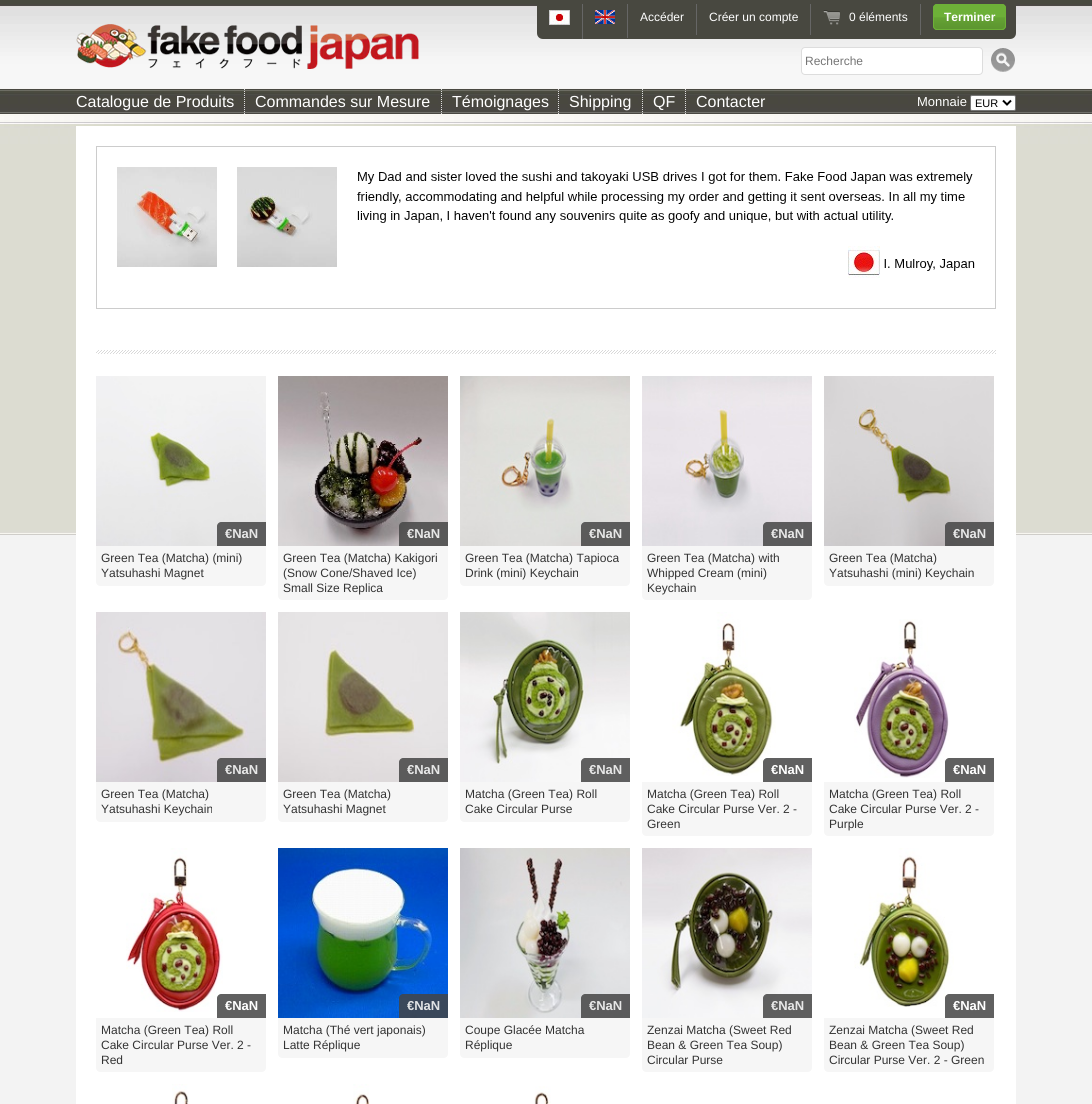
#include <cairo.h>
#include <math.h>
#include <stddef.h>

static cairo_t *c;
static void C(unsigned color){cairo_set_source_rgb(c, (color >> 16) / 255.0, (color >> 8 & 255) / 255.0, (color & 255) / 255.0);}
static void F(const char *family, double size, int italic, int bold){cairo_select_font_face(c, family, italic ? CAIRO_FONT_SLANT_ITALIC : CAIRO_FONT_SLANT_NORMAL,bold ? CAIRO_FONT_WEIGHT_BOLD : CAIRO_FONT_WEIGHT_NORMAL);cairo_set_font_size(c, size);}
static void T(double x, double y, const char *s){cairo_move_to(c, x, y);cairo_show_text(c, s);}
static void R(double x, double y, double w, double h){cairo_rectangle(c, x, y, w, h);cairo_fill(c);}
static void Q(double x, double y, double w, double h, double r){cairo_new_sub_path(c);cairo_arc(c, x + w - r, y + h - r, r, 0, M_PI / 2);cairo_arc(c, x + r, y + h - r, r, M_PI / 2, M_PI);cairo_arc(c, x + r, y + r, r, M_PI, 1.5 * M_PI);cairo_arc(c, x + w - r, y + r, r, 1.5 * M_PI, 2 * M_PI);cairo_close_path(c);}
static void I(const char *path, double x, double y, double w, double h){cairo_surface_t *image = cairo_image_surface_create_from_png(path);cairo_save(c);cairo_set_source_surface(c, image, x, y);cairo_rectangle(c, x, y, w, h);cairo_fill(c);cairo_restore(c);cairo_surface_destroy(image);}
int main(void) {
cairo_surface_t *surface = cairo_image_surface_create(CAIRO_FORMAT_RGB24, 1092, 1104);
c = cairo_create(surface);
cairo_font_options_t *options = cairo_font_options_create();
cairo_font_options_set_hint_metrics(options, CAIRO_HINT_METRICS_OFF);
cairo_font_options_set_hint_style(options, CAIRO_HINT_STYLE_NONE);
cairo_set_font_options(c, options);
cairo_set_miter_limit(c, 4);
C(0xf3f3f3);
cairo_paint(c);
I("1.png",0,4,1092,531);
C(0x484840);
R(0,0,1092,4);
cairo_new_path(c);
cairo_move_to(c,537,4);
cairo_line_to(c,1016,4);
cairo_line_to(c,1016,33);
cairo_curve_to(c,1016,36.5,1013.5,39,1010,39);
cairo_line_to(c,543,39);
cairo_curve_to(c,539.5,39,537,36.5,537,33);
cairo_close_path(c);
cairo_fill(c);
C(0x666666);
R(582,4,1,35);
I("2.png",549,10,21,15);
R(627,4,1,34);
I("3.png",595,10,20,14);
R(696,4,1,31);
F("Liberation Sans",12,0,0);
C(0xffffff);
T(640,21,"Accéder");
C(0x666666);
R(810,4,1,31);
C(0xffffff);
T(709,21,"Créer un compte");
C(0x666666);
R(920,4,1,31);
I("4.png",823,10,17,15);
C(0xffffff);
T(849,21,"0 éléments");
C(0x6db038);
Q(933,4,73,26,4);
cairo_fill(c);
I("5.png",933,17,73,12);
Q(933.5,4.5,72,25,3.5);
cairo_set_line_width(c,1);
cairo_stroke(c);
F("Liberation Sans",12,0,1);
C(0xffffff);
T(944,21,"Terminer");
I("6.png",76,24,343,45);
Q(801.5,47.5,181,27,3.5);
cairo_fill_preserve(c);
C(0xdddddd);
cairo_stroke(c);
F("Liberation Sans",12,0,0);
C(0x757575);
T(805,65,"Recherche");
I("7.png",991,48,24,24);
cairo_new_path(c);
cairo_move_to(c,244.5,89);
cairo_line_to(c,244.5,115);
C(0xdddddd);
cairo_set_dash(c,(double[]){1,1},2,0);
cairo_stroke(c);
F("Liberation Sans",16,0,0);
C(0xffffff);
T(76,107,"Catalogue de Produits");
cairo_new_path(c);
cairo_move_to(c,441.5,89);
cairo_line_to(c,441.5,115);
C(0xdddddd);
cairo_stroke(c);
C(0xffffff);
T(255,107,"Commandes sur Mesure");
cairo_new_path(c);
cairo_move_to(c,558.5,89);
cairo_line_to(c,558.5,115);
C(0xdddddd);
cairo_stroke(c);
C(0xffffff);
T(452,107,"Témoignages");
cairo_new_path(c);
cairo_move_to(c,642.5,89);
cairo_line_to(c,642.5,115);
C(0xdddddd);
cairo_stroke(c);
C(0xffffff);
T(569,107,"Shipping");
cairo_new_path(c);
cairo_move_to(c,685.5,89);
cairo_line_to(c,685.5,115);
C(0xdddddd);
cairo_stroke(c);
C(0xffffff);
T(653,107,"QF");
T(696,107,"Contacter");
F("Liberation Sans",13,0,0);
T(917,106,"Monnaie");
Q(970.5,95.5,45,15,1.5);
cairo_fill_preserve(c);
C(0x767676);
cairo_set_dash(c,NULL,0,0);
cairo_stroke(c);
cairo_new_path(c);
cairo_move_to(c,1003,100.5);
cairo_line_to(c,1007,104.5);
cairo_line_to(c,1011,100.5);
C(0x000000);
cairo_set_line_width(c,2);
cairo_stroke(c);
F("Liberation Sans",11,0,0);
T(975,107,"EUR");
C(0xffffff);
R(76,126,940,978);
I("8.png",96,146,900,163);
I("9.png",96,350,900,4);
I("10.png",96,376,170,170);
cairo_set_source_rgba(c,0.267,0.267,0.267,0.85);
cairo_new_path(c);
cairo_move_to(c,221,522);
cairo_line_to(c,266,522);
cairo_line_to(c,266,546);
cairo_line_to(c,217,546);
cairo_line_to(c,217,526);
cairo_curve_to(c,217,524,219,522,221,522);
cairo_close_path(c);
cairo_fill(c);
F("Liberation Sans",13,0,1);
C(0xe7e7e7);
T(225,538,"€NaN");
C(0xf6f6f6);
cairo_new_path(c);
cairo_move_to(c,96,546);
cairo_line_to(c,266,546);
cairo_line_to(c,266,582);
cairo_curve_to(c,266,584,264,586,262,586);
cairo_line_to(c,100,586);
cairo_curve_to(c,98,586,96,584,96,582);
cairo_close_path(c);
cairo_fill(c);
F("Liberation Sans",12,0,0);
C(0x333333);
T(101,562,"Green Tea (Matcha) (mini)");
T(101,577,"Yatsuhashi Magnet");
I("11.png",278,376,170,170);
cairo_set_source_rgba(c,0.267,0.267,0.267,0.85);
cairo_new_path(c);
cairo_move_to(c,403,522);
cairo_line_to(c,448,522);
cairo_line_to(c,448,546);
cairo_line_to(c,399,546);
cairo_line_to(c,399,526);
cairo_curve_to(c,399,524,401,522,403,522);
cairo_close_path(c);
cairo_fill(c);
F("Liberation Sans",13,0,1);
C(0xe7e7e7);
T(407,538,"€NaN");
C(0xf6f6f6);
cairo_new_path(c);
cairo_move_to(c,278,546);
cairo_line_to(c,448,546);
cairo_line_to(c,448,596);
cairo_curve_to(c,448,598,446,600,444,600);
cairo_line_to(c,282,600);
cairo_curve_to(c,280,600,278,598,278,596);
cairo_close_path(c);
cairo_fill(c);
F("Liberation Sans",12,0,0);
C(0x333333);
T(283,562,"Green Tea (Matcha) Kakigori");
T(283,577,"(Snow Cone/Shaved Ice)");
T(283,592,"Small Size Replica");
I("12.png",460,376,170,170);
cairo_set_source_rgba(c,0.267,0.267,0.267,0.85);
cairo_new_path(c);
cairo_move_to(c,585,522);
cairo_line_to(c,630,522);
cairo_line_to(c,630,546);
cairo_line_to(c,581,546);
cairo_line_to(c,581,526);
cairo_curve_to(c,581,524,583,522,585,522);
cairo_close_path(c);
cairo_fill(c);
F("Liberation Sans",13,0,1);
C(0xe7e7e7);
T(589,538,"€NaN");
C(0xf6f6f6);
cairo_new_path(c);
cairo_move_to(c,460,546);
cairo_line_to(c,630,546);
cairo_line_to(c,630,582);
cairo_curve_to(c,630,584,628,586,626,586);
cairo_line_to(c,464,586);
cairo_curve_to(c,462,586,460,584,460,582);
cairo_close_path(c);
cairo_fill(c);
F("Liberation Sans",12,0,0);
C(0x333333);
T(465,562,"Green Tea (Matcha) Tapioca");
T(465,577,"Drink (mini) Keychain");
I("13.png",642,376,170,170);
cairo_set_source_rgba(c,0.267,0.267,0.267,0.85);
cairo_new_path(c);
cairo_move_to(c,767,522);
cairo_line_to(c,812,522);
cairo_line_to(c,812,546);
cairo_line_to(c,763,546);
cairo_line_to(c,763,526);
cairo_curve_to(c,763,524,765,522,767,522);
cairo_close_path(c);
cairo_fill(c);
F("Liberation Sans",13,0,1);
C(0xe7e7e7);
T(771,538,"€NaN");
C(0xf6f6f6);
cairo_new_path(c);
cairo_move_to(c,642,546);
cairo_line_to(c,812,546);
cairo_line_to(c,812,596);
cairo_curve_to(c,812,598,810,600,808,600);
cairo_line_to(c,646,600);
cairo_curve_to(c,644,600,642,598,642,596);
cairo_close_path(c);
cairo_fill(c);
F("Liberation Sans",12,0,0);
C(0x333333);
T(647,562,"Green Tea (Matcha) with");
T(647,577,"Whipped Cream (mini)");
T(647,592,"Keychain");
I("14.png",824,376,170,170);
cairo_set_source_rgba(c,0.267,0.267,0.267,0.85);
cairo_new_path(c);
cairo_move_to(c,949,522);
cairo_line_to(c,994,522);
cairo_line_to(c,994,546);
cairo_line_to(c,945,546);
cairo_line_to(c,945,526);
cairo_curve_to(c,945,524,947,522,949,522);
cairo_close_path(c);
cairo_fill(c);
F("Liberation Sans",13,0,1);
C(0xe7e7e7);
T(953,538,"€NaN");
C(0xf6f6f6);
cairo_new_path(c);
cairo_move_to(c,824,546);
cairo_line_to(c,994,546);
cairo_line_to(c,994,582);
cairo_curve_to(c,994,584,992,586,990,586);
cairo_line_to(c,828,586);
cairo_curve_to(c,826,586,824,584,824,582);
cairo_close_path(c);
cairo_fill(c);
F("Liberation Sans",12,0,0);
C(0x333333);
T(829,562,"Green Tea (Matcha)");
T(829,577,"Yatsuhashi (mini) Keychain");
I("15.png",96,612,170,170);
cairo_set_source_rgba(c,0.267,0.267,0.267,0.85);
cairo_new_path(c);
cairo_move_to(c,221,758);
cairo_line_to(c,266,758);
cairo_line_to(c,266,782);
cairo_line_to(c,217,782);
cairo_line_to(c,217,762);
cairo_curve_to(c,217,760,219,758,221,758);
cairo_close_path(c);
cairo_fill(c);
F("Liberation Sans",13,0,1);
C(0xe7e7e7);
T(225,774,"€NaN");
C(0xf6f6f6);
cairo_new_path(c);
cairo_move_to(c,96,782);
cairo_line_to(c,266,782);
cairo_line_to(c,266,818);
cairo_curve_to(c,266,820,264,822,262,822);
cairo_line_to(c,100,822);
cairo_curve_to(c,98,822,96,820,96,818);
cairo_close_path(c);
cairo_fill(c);
F("Liberation Sans",12,0,0);
C(0x333333);
T(101,798,"Green Tea (Matcha)");
T(101,813,"Yatsuhashi Keychain");
I("16.png",278,612,170,170);
cairo_set_source_rgba(c,0.267,0.267,0.267,0.85);
cairo_new_path(c);
cairo_move_to(c,403,758);
cairo_line_to(c,448,758);
cairo_line_to(c,448,782);
cairo_line_to(c,399,782);
cairo_line_to(c,399,762);
cairo_curve_to(c,399,760,401,758,403,758);
cairo_close_path(c);
cairo_fill(c);
F("Liberation Sans",13,0,1);
C(0xe7e7e7);
T(407,774,"€NaN");
C(0xf6f6f6);
cairo_new_path(c);
cairo_move_to(c,278,782);
cairo_line_to(c,448,782);
cairo_line_to(c,448,818);
cairo_curve_to(c,448,820,446,822,444,822);
cairo_line_to(c,282,822);
cairo_curve_to(c,280,822,278,820,278,818);
cairo_close_path(c);
cairo_fill(c);
F("Liberation Sans",12,0,0);
C(0x333333);
T(283,798,"Green Tea (Matcha)");
T(283,813,"Yatsuhashi Magnet");
I("17.png",460,612,170,170);
cairo_set_source_rgba(c,0.267,0.267,0.267,0.85);
cairo_new_path(c);
cairo_move_to(c,585,758);
cairo_line_to(c,630,758);
cairo_line_to(c,630,782);
cairo_line_to(c,581,782);
cairo_line_to(c,581,762);
cairo_curve_to(c,581,760,583,758,585,758);
cairo_close_path(c);
cairo_fill(c);
F("Liberation Sans",13,0,1);
C(0xe7e7e7);
T(589,774,"€NaN");
C(0xf6f6f6);
cairo_new_path(c);
cairo_move_to(c,460,782);
cairo_line_to(c,630,782);
cairo_line_to(c,630,818);
cairo_curve_to(c,630,820,628,822,626,822);
cairo_line_to(c,464,822);
cairo_curve_to(c,462,822,460,820,460,818);
cairo_close_path(c);
cairo_fill(c);
F("Liberation Sans",12,0,0);
C(0x333333);
T(465,798,"Matcha (Green Tea) Roll");
T(465,813,"Cake Circular Purse");
I("18.png",672,612,104,164);
C(0x606060);
cairo_new_path(c);
cairo_move_to(c,767,758);
cairo_line_to(c,812,758);
cairo_line_to(c,812,782);
cairo_line_to(c,763,782);
cairo_line_to(c,763,762);
cairo_curve_to(c,763,760,765,758,767,758);
cairo_close_path(c);
cairo_fill(c);
F("Liberation Sans",13,0,1);
C(0xffffff);
T(771,774,"€NaN");
C(0xf6f6f6);
cairo_new_path(c);
cairo_move_to(c,642,782);
cairo_line_to(c,812,782);
cairo_line_to(c,812,832);
cairo_curve_to(c,812,834,810,836,808,836);
cairo_line_to(c,646,836);
cairo_curve_to(c,644,836,642,834,642,832);
cairo_close_path(c);
cairo_fill(c);
F("Liberation Sans",12,0,0);
C(0x333333);
T(647,798,"Matcha (Green Tea) Roll");
T(647,813,"Cake Circular Purse Ver. 2 -");
T(647,828,"Green");
I("19.png",854,619,96,159);
C(0x606060);
cairo_new_path(c);
cairo_move_to(c,949,758);
cairo_line_to(c,994,758);
cairo_line_to(c,994,782);
cairo_line_to(c,945,782);
cairo_line_to(c,945,762);
cairo_curve_to(c,945,760,947,758,949,758);
cairo_close_path(c);
cairo_fill(c);
F("Liberation Sans",13,0,1);
C(0xffffff);
T(953,774,"€NaN");
C(0xf6f6f6);
cairo_new_path(c);
cairo_move_to(c,824,782);
cairo_line_to(c,994,782);
cairo_line_to(c,994,832);
cairo_curve_to(c,994,834,992,836,990,836);
cairo_line_to(c,828,836);
cairo_curve_to(c,826,836,824,834,824,832);
cairo_close_path(c);
cairo_fill(c);
F("Liberation Sans",12,0,0);
C(0x333333);
T(829,798,"Matcha (Green Tea) Roll");
T(829,813,"Cake Circular Purse Ver. 2 -");
T(829,828,"Purple");
I("20.png",126,848,97,164);
C(0x606060);
cairo_new_path(c);
cairo_move_to(c,221,994);
cairo_line_to(c,266,994);
cairo_line_to(c,266,1018);
cairo_line_to(c,217,1018);
cairo_line_to(c,217,998);
cairo_curve_to(c,217,996,219,994,221,994);
cairo_close_path(c);
cairo_fill(c);
F("Liberation Sans",13,0,1);
C(0xffffff);
T(225,1010,"€NaN");
C(0xf6f6f6);
cairo_new_path(c);
cairo_move_to(c,96,1018);
cairo_line_to(c,266,1018);
cairo_line_to(c,266,1068);
cairo_curve_to(c,266,1070,264,1072,262,1072);
cairo_line_to(c,100,1072);
cairo_curve_to(c,98,1072,96,1070,96,1068);
cairo_close_path(c);
cairo_fill(c);
F("Liberation Sans",12,0,0);
C(0x333333);
T(101,1034,"Matcha (Green Tea) Roll");
T(101,1049,"Cake Circular Purse Ver. 2 -");
T(101,1064,"Red");
I("21.png",278,848,170,170);
cairo_set_source_rgba(c,0.267,0.267,0.267,0.85);
cairo_new_path(c);
cairo_move_to(c,403,994);
cairo_line_to(c,448,994);
cairo_line_to(c,448,1018);
cairo_line_to(c,399,1018);
cairo_line_to(c,399,998);
cairo_curve_to(c,399,996,401,994,403,994);
cairo_close_path(c);
cairo_fill(c);
F("Liberation Sans",13,0,1);
C(0xe1e4e6);
T(407,1010,"€NaN");
C(0xf6f6f6);
cairo_new_path(c);
cairo_move_to(c,278,1018);
cairo_line_to(c,448,1018);
cairo_line_to(c,448,1054);
cairo_curve_to(c,448,1056,446,1058,444,1058);
cairo_line_to(c,282,1058);
cairo_curve_to(c,280,1058,278,1056,278,1054);
cairo_close_path(c);
cairo_fill(c);
F("Liberation Sans",12,0,0);
C(0x333333);
T(283,1034,"Matcha (Thé vert japonais)");
T(283,1049,"Latte Réplique");
I("22.png",460,848,170,170);
cairo_set_source_rgba(c,0.267,0.267,0.267,0.85);
cairo_new_path(c);
cairo_move_to(c,585,994);
cairo_line_to(c,630,994);
cairo_line_to(c,630,1018);
cairo_line_to(c,581,1018);
cairo_line_to(c,581,998);
cairo_curve_to(c,581,996,583,994,585,994);
cairo_close_path(c);
cairo_fill(c);
F("Liberation Sans",13,0,1);
C(0xe7e7e7);
T(589,1010,"€NaN");
C(0xf6f6f6);
cairo_new_path(c);
cairo_move_to(c,460,1018);
cairo_line_to(c,630,1018);
cairo_line_to(c,630,1054);
cairo_curve_to(c,630,1056,628,1058,626,1058);
cairo_line_to(c,464,1058);
cairo_curve_to(c,462,1058,460,1056,460,1054);
cairo_close_path(c);
cairo_fill(c);
F("Liberation Sans",12,0,0);
C(0x333333);
T(465,1034,"Coupe Glacée Matcha");
T(465,1049,"Réplique");
I("23.png",642,848,170,170);
cairo_set_source_rgba(c,0.267,0.267,0.267,0.85);
cairo_new_path(c);
cairo_move_to(c,767,994);
cairo_line_to(c,812,994);
cairo_line_to(c,812,1018);
cairo_line_to(c,763,1018);
cairo_line_to(c,763,998);
cairo_curve_to(c,763,996,765,994,767,994);
cairo_close_path(c);
cairo_fill(c);
F("Liberation Sans",13,0,1);
C(0xe7e7e7);
T(771,1010,"€NaN");
C(0xf6f6f6);
cairo_new_path(c);
cairo_move_to(c,642,1018);
cairo_line_to(c,812,1018);
cairo_line_to(c,812,1068);
cairo_curve_to(c,812,1070,810,1072,808,1072);
cairo_line_to(c,646,1072);
cairo_curve_to(c,644,1072,642,1070,642,1068);
cairo_close_path(c);
cairo_fill(c);
F("Liberation Sans",12,0,0);
C(0x333333);
T(647,1034,"Zenzai Matcha (Sweet Red");
T(647,1049,"Bean & Green Tea Soup)");
T(647,1064,"Circular Purse");
I("24.png",854,848,100,159);
C(0x606060);
cairo_new_path(c);
cairo_move_to(c,949,994);
cairo_line_to(c,994,994);
cairo_line_to(c,994,1018);
cairo_line_to(c,945,1018);
cairo_line_to(c,945,998);
cairo_curve_to(c,945,996,947,994,949,994);
cairo_close_path(c);
cairo_fill(c);
F("Liberation Sans",13,0,1);
C(0xffffff);
T(953,1010,"€NaN");
C(0xf6f6f6);
cairo_new_path(c);
cairo_move_to(c,824,1018);
cairo_line_to(c,994,1018);
cairo_line_to(c,994,1068);
cairo_curve_to(c,994,1070,992,1072,990,1072);
cairo_line_to(c,828,1072);
cairo_curve_to(c,826,1072,824,1070,824,1068);
cairo_close_path(c);
cairo_fill(c);
F("Liberation Sans",12,0,0);
C(0x333333);
T(829,1034,"Zenzai Matcha (Sweet Red");
T(829,1049,"Bean & Green Tea Soup)");
T(829,1064,"Circular Purse Ver. 2 - Green");
I("25.png",172,1084,17,20);
I("26.png",353,1084,17,20);
I("27.png",534,1086,17,18);
cairo_surface_write_to_png(surface, "o.png");
cairo_font_options_destroy(options);
cairo_destroy(c);
cairo_surface_destroy(surface);
return 0;
}
